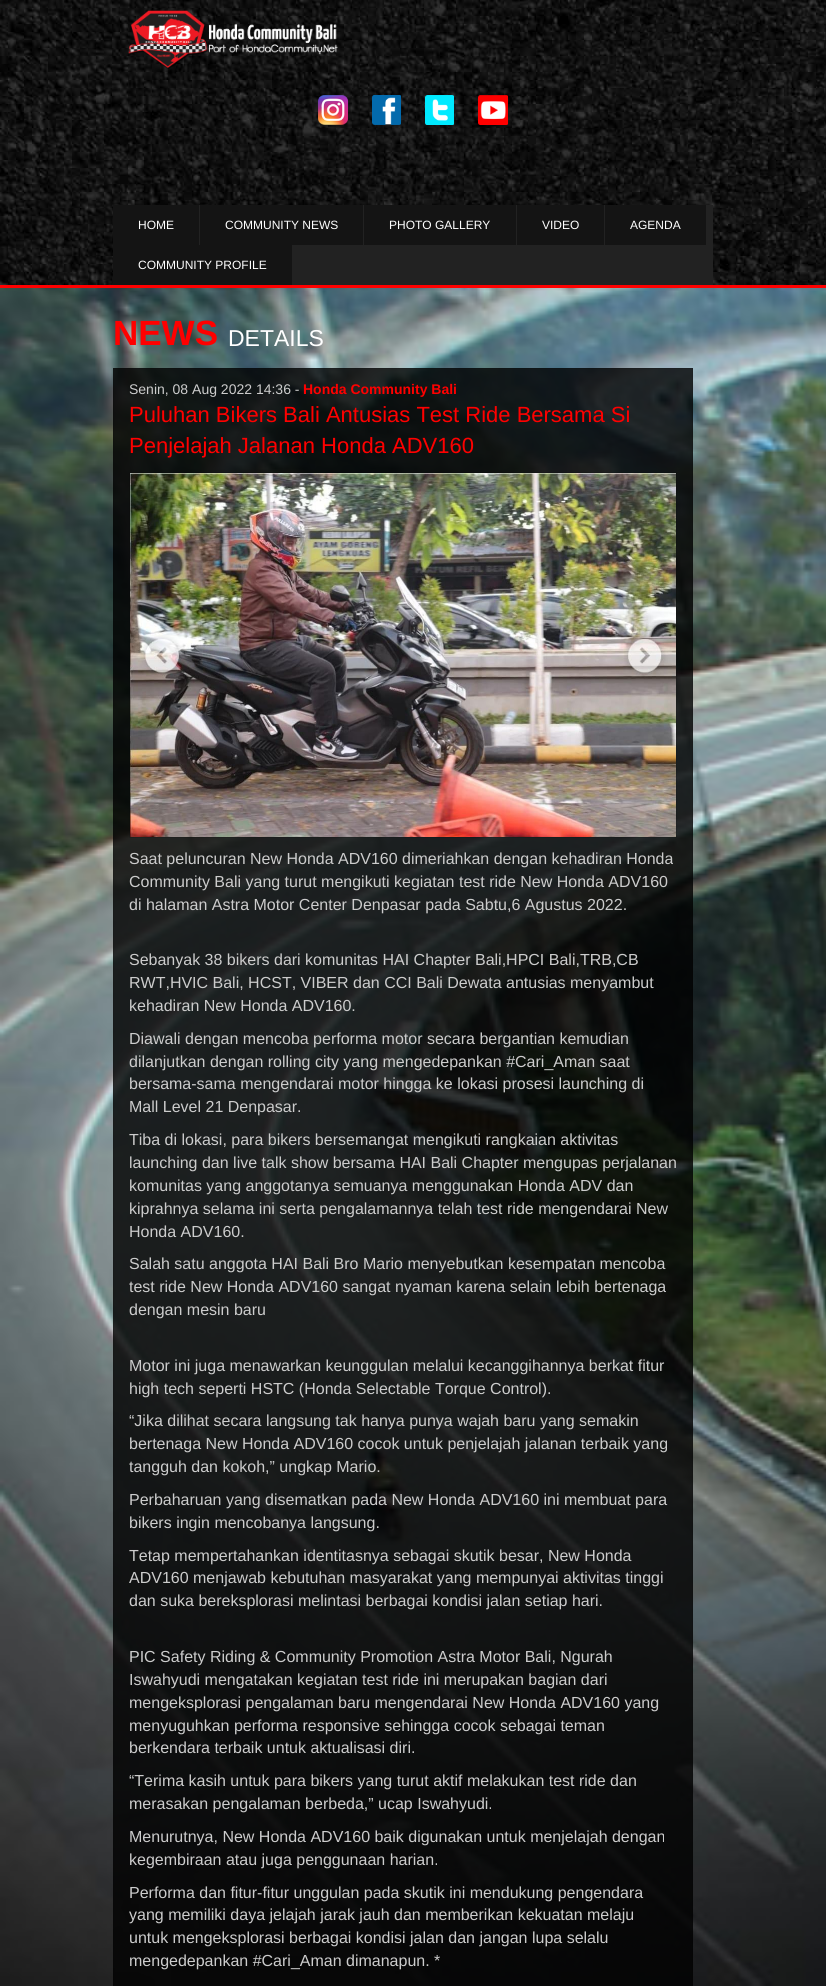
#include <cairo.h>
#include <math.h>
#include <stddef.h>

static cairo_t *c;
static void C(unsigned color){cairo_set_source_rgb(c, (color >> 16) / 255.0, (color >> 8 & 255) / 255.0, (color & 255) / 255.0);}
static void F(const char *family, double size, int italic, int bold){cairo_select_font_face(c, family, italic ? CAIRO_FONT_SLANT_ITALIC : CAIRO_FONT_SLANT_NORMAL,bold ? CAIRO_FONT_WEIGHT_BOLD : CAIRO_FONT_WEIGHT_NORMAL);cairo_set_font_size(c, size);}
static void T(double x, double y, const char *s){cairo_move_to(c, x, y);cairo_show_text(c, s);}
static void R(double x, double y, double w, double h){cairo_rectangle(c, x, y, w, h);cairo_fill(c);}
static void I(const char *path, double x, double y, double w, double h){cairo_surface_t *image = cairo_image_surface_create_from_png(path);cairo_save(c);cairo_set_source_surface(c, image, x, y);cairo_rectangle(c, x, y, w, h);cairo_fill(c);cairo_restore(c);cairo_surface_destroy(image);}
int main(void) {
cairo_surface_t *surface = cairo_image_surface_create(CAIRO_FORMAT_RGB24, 826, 1986);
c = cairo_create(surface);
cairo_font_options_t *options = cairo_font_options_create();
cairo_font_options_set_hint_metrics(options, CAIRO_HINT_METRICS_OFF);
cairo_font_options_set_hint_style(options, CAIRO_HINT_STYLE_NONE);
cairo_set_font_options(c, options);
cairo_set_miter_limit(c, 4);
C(0xffffff);
cairo_paint(c);
I("1.png",0,288,826,1698);
I("2.png",0,0,826,285);
C(0xff0000);
R(0,285,826,3);
I("3.png",128,10,210,59);
I("4.png",318,95,30,30);
I("5.png",372,95,29,30);
I("6.png",425,95,29,30);
I("7.png",478,95,30,30);
C(0x222222);
R(199,205,514,80);
C(0x141414);
R(113,205,86,40);
F("Liberation Sans",12,0,0);
C(0xffffff);
T(138,229,"HOME");
C(0x141414);
R(200,205,163,40);
C(0xffffff);
T(225,229,"COMMUNITY NEWS");
C(0x141414);
R(364,205,152,40);
C(0xffffff);
T(389,229,"PHOTO GALLERY");
C(0x141414);
R(517,205,87,40);
C(0xffffff);
T(542,229,"VIDEO");
C(0x141414);
R(605,205,101,40);
C(0xffffff);
T(630,229,"AGENDA");
C(0x141414);
R(113,245,179,40);
C(0xffffff);
T(138,269,"COMMUNITY PROFILE");
F("Liberation Sans",35,0,1);
C(0xff0000);
T(113,345,"NEWS");
F("Liberation Sans",23,0,0);
C(0xffffff);
T(228,346,"DETAILS");
cairo_set_source_rgba(c,0,0,0,0.8);
R(113,368,580,1618);
cairo_rectangle(c,113.5,368.5,579,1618);
cairo_set_source_rgba(c,0,0,0,0.1);
cairo_set_line_width(c,1);
cairo_stroke(c);
F("Liberation Sans",14,0,0);
C(0xcccccc);
T(129,394,"Senin, 08 Aug 2022 14:36 -");
F("Liberation Sans",14,0,1);
C(0xff0000);
T(303,394,"Honda Community Bali");
F("Liberation Sans",22,0,0);
T(129,422,"Puluhan Bikers Bali Antusias Test Ride Bersama Si");
T(129,453,"Penjelajah Jalanan Honda ADV160");
cairo_rectangle(c,129.5,472.5,547,365);
cairo_set_source_rgba(c,0,0,0,0.1);
cairo_stroke(c);
I("8.png",130,473,546,364);
F("Liberation Sans",16,0,0);
C(0xcccccc);
T(129,864,"Saat peluncuran New Honda ADV160 dimeriahkan dengan kehadiran Honda");
T(129,887,"Community Bali yang turut mengikuti kegiatan test ride New Honda ADV160");
T(129,910,"di halaman Astra Motor Center Denpasar pada Sabtu,6 Agustus 2022.");
T(129,965,"Sebanyak 38 bikers dari komunitas HAI Chapter Bali,HPCI Bali,TRB,CB");
T(129,988,"RWT,HVIC Bali, HCST, VIBER dan CCI Bali Dewata antusias menyambut");
T(129,1011,"kehadiran New Honda ADV160.");
T(129,1044,"Diawali dengan mencoba performa motor secara bergantian kemudian");
T(129,1067,"dilanjutkan dengan rolling city yang mengedepankan #Cari_Aman saat");
T(129,1089,"bersama-sama mengendarai motor hingga ke lokasi prosesi launching di");
T(129,1112,"Mall Level 21 Denpasar.");
T(129,1145,"Tiba di lokasi, para bikers bersemangat mengikuti rangkaian aktivitas");
T(129,1168,"launching dan live talk show bersama HAI Bali Chapter mengupas perjalanan");
T(129,1191,"komunitas yang anggotanya semuanya menggunakan Honda ADV dan");
T(129,1214,"kiprahnya selama ini serta pengalamannya telah test ride mengendarai New");
T(129,1237,"Honda ADV160.");
T(129,1269,"Salah satu anggota HAI Bali Bro Mario menyebutkan kesempatan mencoba");
T(129,1292,"test ride New Honda ADV160 sangat nyaman karena selain lebih bertenaga");
T(129,1315,"dengan mesin baru");
T(129,1371,"Motor ini juga menawarkan keunggulan melalui kecanggihannya berkat fitur");
T(129,1394,"high tech seperti HSTC (Honda Selectable Torque Control).");
T(129,1426,"“Jika dilihat secara langsung tak hanya punya wajah baru yang semakin");
T(129,1449,"bertenaga New Honda ADV160 cocok untuk penjelajah jalanan terbaik yang");
T(129,1472,"tangguh dan kokoh,” ungkap Mario.");
T(129,1505,"Perbaharuan yang disematkan pada New Honda ADV160 ini membuat para");
T(129,1528,"bikers ingin mencobanya langsung.");
T(129,1561,"Tetap mempertahankan identitasnya sebagai skutik besar, New Honda");
T(129,1583,"ADV160 menjawab kebutuhan masyarakat yang mempunyai aktivitas tinggi");
T(129,1606,"dan suka bereksplorasi melintasi berbagai kondisi jalan setiap hari.");
T(129,1662,"PIC Safety Riding & Community Promotion Astra Motor Bali, Ngurah");
T(129,1685,"Iswahyudi mengatakan kegiatan test ride ini merupakan bagian dari");
T(129,1708,"mengeksplorasi pengalaman baru mengendarai New Honda ADV160 yang");
T(129,1731,"menyuguhkan performa responsive sehingga cocok sebagai teman");
T(129,1753,"berkendara terbaik untuk aktualisasi diri.");
T(129,1786,"“Terima kasih untuk para bikers yang turut aktif melakukan test ride dan");
T(129,1809,"merasakan pengalaman berbeda,” ucap Iswahyudi.");
T(129,1842,"Menurutnya, New Honda ADV160 baik digunakan untuk menjelajah dengan");
T(129,1865,"kegembiraan atau juga penggunaan harian.");
T(129,1898,"Performa dan fitur-fitur unggulan pada skutik ini mendukung pengendara");
T(129,1920,"yang memiliki daya jelajah jarak jauh dan memberikan kekuatan melaju");
T(129,1943,"untuk mengeksplorasi berbagai kondisi jalan dan jangan lupa selalu");
T(129,1966,"mengedepankan #Cari_Aman dimanapun. *");
cairo_surface_write_to_png(surface, "o.png");
cairo_font_options_destroy(options);
cairo_destroy(c);
cairo_surface_destroy(surface);
return 0;
}
